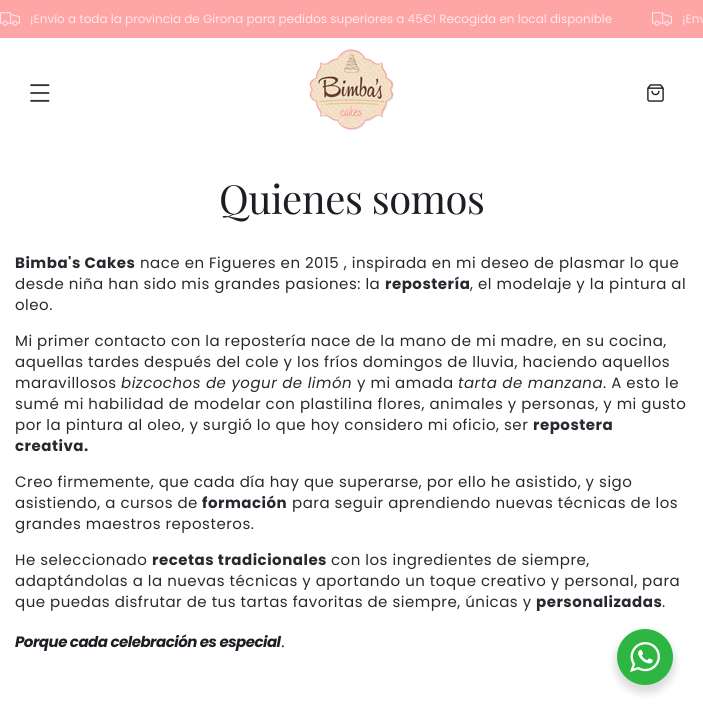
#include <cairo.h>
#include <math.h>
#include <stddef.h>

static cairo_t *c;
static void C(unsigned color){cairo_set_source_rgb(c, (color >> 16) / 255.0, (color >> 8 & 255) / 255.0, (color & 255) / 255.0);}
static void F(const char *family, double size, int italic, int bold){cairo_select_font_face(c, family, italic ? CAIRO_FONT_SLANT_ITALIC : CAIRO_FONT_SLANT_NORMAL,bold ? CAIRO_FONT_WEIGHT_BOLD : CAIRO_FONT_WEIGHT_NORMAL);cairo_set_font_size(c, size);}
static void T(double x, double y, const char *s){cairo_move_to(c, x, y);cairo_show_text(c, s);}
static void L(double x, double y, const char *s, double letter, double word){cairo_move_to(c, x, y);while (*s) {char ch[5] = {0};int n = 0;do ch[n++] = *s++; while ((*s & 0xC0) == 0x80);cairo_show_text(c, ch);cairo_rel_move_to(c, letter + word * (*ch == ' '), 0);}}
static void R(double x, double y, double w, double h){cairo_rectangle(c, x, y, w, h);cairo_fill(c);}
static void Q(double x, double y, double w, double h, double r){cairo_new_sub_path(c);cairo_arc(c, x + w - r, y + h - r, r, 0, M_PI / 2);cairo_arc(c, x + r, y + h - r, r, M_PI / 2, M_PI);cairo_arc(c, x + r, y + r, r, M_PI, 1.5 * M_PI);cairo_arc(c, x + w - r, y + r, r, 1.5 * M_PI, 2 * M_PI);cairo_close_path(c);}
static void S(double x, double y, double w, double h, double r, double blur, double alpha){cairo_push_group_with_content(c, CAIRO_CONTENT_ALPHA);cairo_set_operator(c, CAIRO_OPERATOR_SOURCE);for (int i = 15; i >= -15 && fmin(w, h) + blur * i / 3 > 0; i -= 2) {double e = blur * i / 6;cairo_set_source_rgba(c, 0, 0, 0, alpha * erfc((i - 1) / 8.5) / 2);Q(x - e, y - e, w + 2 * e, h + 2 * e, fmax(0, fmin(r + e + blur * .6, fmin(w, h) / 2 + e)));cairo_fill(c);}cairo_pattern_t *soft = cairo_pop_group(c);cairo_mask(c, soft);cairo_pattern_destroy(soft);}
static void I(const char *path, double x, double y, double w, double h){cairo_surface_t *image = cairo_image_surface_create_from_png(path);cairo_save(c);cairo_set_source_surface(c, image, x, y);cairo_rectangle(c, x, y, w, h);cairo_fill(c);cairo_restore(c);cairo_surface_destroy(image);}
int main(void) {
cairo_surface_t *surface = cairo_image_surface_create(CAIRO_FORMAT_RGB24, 703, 715);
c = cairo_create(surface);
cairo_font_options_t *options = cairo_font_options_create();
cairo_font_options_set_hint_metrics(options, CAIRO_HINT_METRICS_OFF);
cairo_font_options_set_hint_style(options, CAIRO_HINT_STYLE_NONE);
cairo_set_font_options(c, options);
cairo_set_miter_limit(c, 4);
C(0xffffff);
cairo_paint(c);
C(0xfea5a5);
R(0,0,703,38);
I("1.png",0,12,20,14);
F("Poppins",12,0,0);
C(0xffe7ec);
T(30,23,"¡Envío a toda la provincia de Girona para pedidos superiores a 45€! Recogida en local disponible");
I("1.png",652,12,20,14);
T(682,23,"¡Env");
I("2.png",30,84,20,18);
I("3.png",309,49,85,81);
I("4.png",647,84,17,18);
F("Playfair Display",40,0,0);
C(0x1f1d24);
L(219,214,"Quienes somos",-.5,0);
F("Poppins",15,0,1);
C(0x2a282f);
L(15,268,"Bimba's Cakes",.5,0);
F("Poppins",15,0,0);
L(140,268,"nace en Figueres en 2015 , inspirada en mi deseo de plasmar lo que",.5,0);
L(15,289,"desde niña han sido mis grandes pasiones: la",.5,0);
F("Poppins",15,0,1);
L(385,289,"repostería",.5,0);
F("Poppins",15,0,0);
L(470,289,", el modelaje y la pintura al",.5,0);
L(15,310,"oleo.",.5,0);
L(15,346,"Mi primer contacto con la repostería nace de la mano de mi madre, en su cocina,",.5,0);
L(15,367,"aquellas tardes después del cole y los fríos domingos de lluvia, haciendo aquellos",.5,0);
L(15,388,"maravillosos",.5,0);
F("Poppins",15,1,0);
L(121,388,"bizcochos de yogur de limón",.5,0);
F("Poppins",15,0,0);
L(357,388,"y mi amada",.5,0);
F("Poppins",15,1,0);
L(458,388,"tarta de manzana",.5,0);
F("Poppins",15,0,0);
L(603,388,". A esto le",.5,0);
L(15,409,"sumé mi habilidad de modelar con plastilina flores, animales y personas, y mi gusto",.5,0);
L(15,430,"por la pintura al oleo, y surgió lo que hoy considero mi oficio, ser",.5,0);
F("Poppins",15,0,1);
L(533,430,"repostera",.5,0);
L(15,451,"creativa.",.5,0);
F("Poppins",15,0,0);
L(15,487,"Creo firmemente, que cada día hay que superarse, por ello he asistido, y sigo",.5,0);
L(15,508,"asistiendo, a cursos de",.5,0);
F("Poppins",15,0,1);
L(202,508,"formación",.5,0);
F("Poppins",15,0,0);
L(292,508,"para seguir aprendiendo nuevas técnicas de los",.5,0);
L(15,529,"grandes maestros reposteros.",.5,0);
L(15,565,"He seleccionado",.5,0);
F("Poppins",15,0,1);
L(152,565,"recetas tradicionales",.5,0);
F("Poppins",15,0,0);
L(331,565,"con los ingredientes de siempre,",.5,0);
L(15,586,"adaptándolas a la nuevas técnicas y aportando un toque creativo y personal, para",.5,0);
L(15,607,"que puedas disfrutar de tus tartas favoritas de siempre, únicas y",.5,0);
F("Poppins",15,0,1);
L(536,607,"personalizadas",.5,0);
F("Poppins",15,0,0);
L(662,607,".",.5,0);
F("Poppins",15,1,1);
C(0x1f1d24);
L(15,647,"Porque cada celebración es especial",-.5,0);
F("Playfair Display",15,0,0);
L(281,647,".",-.5,0);
C(0x000000);
S(615,633,60,60,30,4,.14);
C(0x2db742);
cairo_arc(c,645,657,28,0,2 * M_PI);
cairo_fill(c);
I("5.png",630,642,30,30);
cairo_surface_write_to_png(surface, "o.png");
cairo_font_options_destroy(options);
cairo_destroy(c);
cairo_surface_destroy(surface);
return 0;
}
